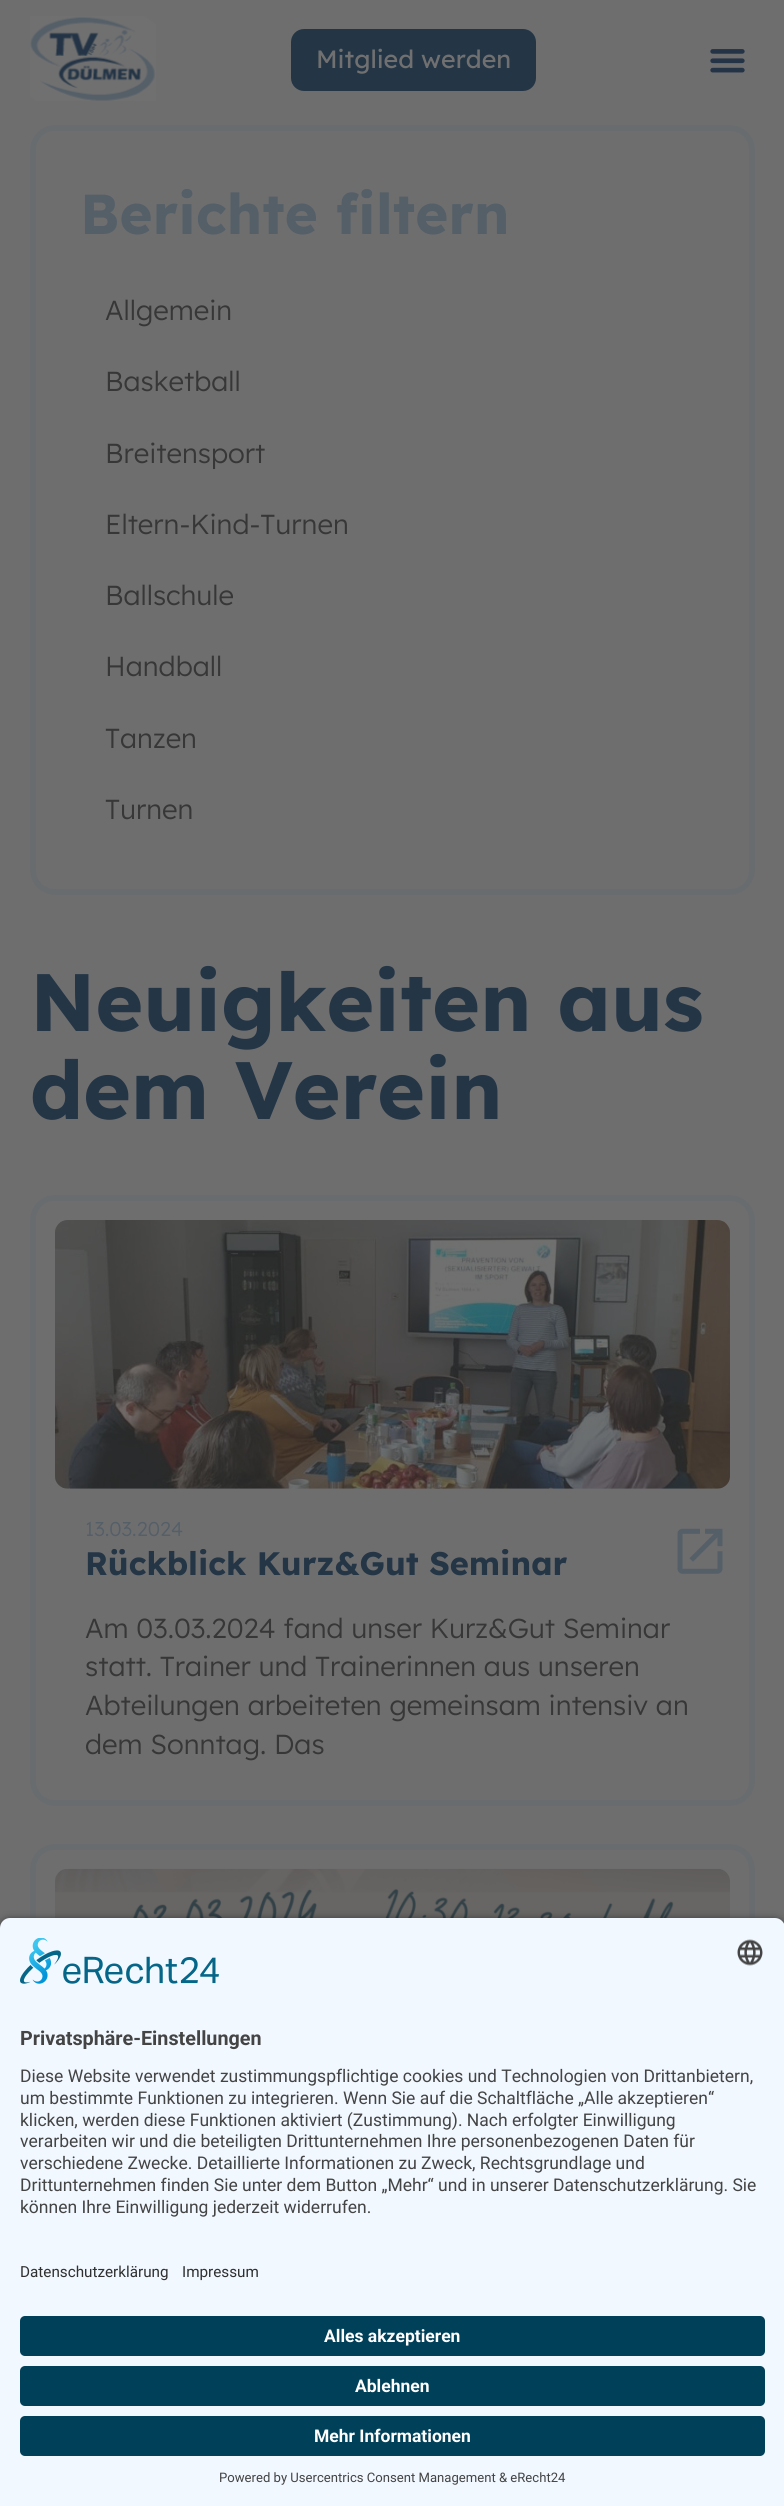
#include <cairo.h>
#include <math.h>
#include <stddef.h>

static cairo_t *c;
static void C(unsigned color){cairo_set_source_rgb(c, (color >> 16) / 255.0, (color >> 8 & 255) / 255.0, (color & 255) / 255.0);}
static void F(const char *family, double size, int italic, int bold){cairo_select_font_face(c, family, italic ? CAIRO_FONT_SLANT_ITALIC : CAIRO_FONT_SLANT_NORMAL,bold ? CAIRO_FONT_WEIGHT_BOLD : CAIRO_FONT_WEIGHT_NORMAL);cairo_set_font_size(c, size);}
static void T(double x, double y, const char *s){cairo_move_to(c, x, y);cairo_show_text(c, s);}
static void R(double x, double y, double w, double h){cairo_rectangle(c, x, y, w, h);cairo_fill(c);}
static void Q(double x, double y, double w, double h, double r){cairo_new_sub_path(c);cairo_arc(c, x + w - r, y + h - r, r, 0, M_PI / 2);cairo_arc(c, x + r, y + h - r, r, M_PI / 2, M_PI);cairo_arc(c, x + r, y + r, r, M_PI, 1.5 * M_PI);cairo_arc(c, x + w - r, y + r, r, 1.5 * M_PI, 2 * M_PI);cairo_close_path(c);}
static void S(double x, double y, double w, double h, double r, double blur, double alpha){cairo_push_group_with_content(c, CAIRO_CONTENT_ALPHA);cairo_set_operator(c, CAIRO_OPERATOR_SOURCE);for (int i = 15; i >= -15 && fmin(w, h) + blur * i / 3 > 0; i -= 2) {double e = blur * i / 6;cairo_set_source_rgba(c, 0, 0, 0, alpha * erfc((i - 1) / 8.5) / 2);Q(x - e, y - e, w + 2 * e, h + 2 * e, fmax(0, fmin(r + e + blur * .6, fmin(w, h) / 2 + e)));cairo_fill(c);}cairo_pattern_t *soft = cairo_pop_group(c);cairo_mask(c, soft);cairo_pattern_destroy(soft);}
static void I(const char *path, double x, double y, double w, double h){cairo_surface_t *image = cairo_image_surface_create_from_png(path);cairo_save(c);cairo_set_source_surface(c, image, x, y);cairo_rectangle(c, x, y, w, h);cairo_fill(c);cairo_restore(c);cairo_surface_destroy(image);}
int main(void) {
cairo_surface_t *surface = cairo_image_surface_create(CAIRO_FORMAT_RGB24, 784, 2506);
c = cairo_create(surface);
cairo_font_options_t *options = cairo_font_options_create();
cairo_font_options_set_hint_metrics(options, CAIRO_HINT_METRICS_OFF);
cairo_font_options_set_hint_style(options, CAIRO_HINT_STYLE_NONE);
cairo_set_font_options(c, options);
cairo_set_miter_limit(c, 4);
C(0x6e6e6f);
cairo_paint(c);
I("1.png",30,16,126,85);
C(0x243546);
Q(291,29,245,62,13);
cairo_fill(c);
F("Lexend",25,0,0);
C(0x707070);
T(316,68,"Mitglied werden");
I("2.png",710,49,35,24);
Q(33,128,719,764,22);
C(0x696c6e);
cairo_set_line_width(c,6);
cairo_stroke(c);
F("Lexend",56.25,0,1);
C(0x555f68);
T(80,234,"Berichte filtern");
F("Lexend Light",27.5,0,0);
C(0x373737);
T(105,320,"Allgemein");
T(105,391,"Basketball");
T(105,463,"Breitensport");
T(105,534,"Eltern-Kind-Turnen");
T(105,605,"Ballschule");
T(105,676,"Handball");
T(105,748,"Tanzen");
T(105,819,"Turnen");
F("Lexend",81.25,0,1);
C(0x243546);
T(30,1031,"Neuigkeiten aus");
T(30,1119,"dem Verein");
Q(33,1198,719,605,22);
C(0x696c6e);
cairo_stroke(c);
I("3.png",55,1220,675,269);
F("Lexend Light",20,0,0);
C(0x555f68);
T(85,1536,"13.03.2024");
I("4.png",677,1528,46,46);
F("Lexend",32.5,0,1);
C(0x243546);
T(85,1575,"Rückblick Kurz&Gut Seminar");
F("Lexend Light",27.5,0,0);
C(0x373737);
T(85,1638,"Am 03.03.2024 fand unser Kurz&Gut Seminar");
T(85,1676,"statt. Trainer und Trainerinnen aus unseren");
T(85,1715,"Abteilungen arbeiteten gemeinsam intensiv an");
T(85,1754,"dem Sonntag. Das");
Q(33,1847,719,606,22);
C(0x696c6e);
cairo_stroke(c);
I("5.png",55,1868,675,50);
C(0x000000);
S(0,1921,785,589,10,4.5,.8);
C(0xf1f8ff);
cairo_new_path(c);
cairo_move_to(c,10,1918);
cairo_line_to(c,775,1918);
cairo_curve_to(c,780.5,1918,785,1922.5,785,1928);
cairo_line_to(c,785,2244);
cairo_line_to(c,0,2244);
cairo_line_to(c,0,1928);
cairo_curve_to(c,0,1922.5,4.5,1918,10,1918);
cairo_close_path(c);
cairo_fill(c);
I("6.png",20,1938,199,46);
I("7.png",737,1939,26,27);
F("Roboto",19.75,0,1);
C(0x444444);
T(20,2045,"Privatsphäre-Einstellungen");
F("Roboto",17.5,0,0);
T(20,2082,"Diese Website verwendet zustimmungspflichtige cookies und Technologien von Drittanbietern,");
T(20,2104,"um bestimmte Funktionen zu integrieren. Wenn Sie auf die Schaltfläche „Alle akzeptieren“");
T(20,2126,"klicken, werden diese Funktionen aktiviert (Zustimmung). Nach erfolgter Einwilligung");
T(20,2147,"verarbeiten wir und die beteiligten Drittunternehmen Ihre personenbezogenen Daten für");
T(20,2169,"verschiedene Zwecke. Detaillierte Informationen zu Zweck, Rechtsgrundlage und");
T(20,2191,"Drittunternehmen finden Sie unter dem Button „Mehr“ und in unserer Datenschutzerklärung. Sie");
T(20,2213,"können Ihre Einwilligung jederzeit widerrufen.");
C(0xf1f8ff);
R(0,2244,784,262);
F("Roboto",15.25,0,0);
C(0x303030);
T(20,2277,"Datenschutzerklärung");
T(182,2277,"Impressum");
C(0x004059);
Q(20,2316,745,40,5);
cairo_fill(c);
F("Roboto",17.5,0,1);
C(0xffffff);
T(324,2342,"Alles akzeptieren");
C(0x004059);
Q(20,2366,745,40,5);
cairo_fill(c);
C(0xffffff);
T(355,2392,"Ablehnen");
C(0x004059);
Q(20,2416,745,40,5);
cairo_fill(c);
C(0xffffff);
T(314,2442,"Mehr Informationen");
F("Roboto",13.1,0,0);
C(0x444444);
T(219,2482,"Powered by Usercentrics Consent Management & eRecht24");
cairo_surface_write_to_png(surface, "o.png");
cairo_font_options_destroy(options);
cairo_destroy(c);
cairo_surface_destroy(surface);
return 0;
}
